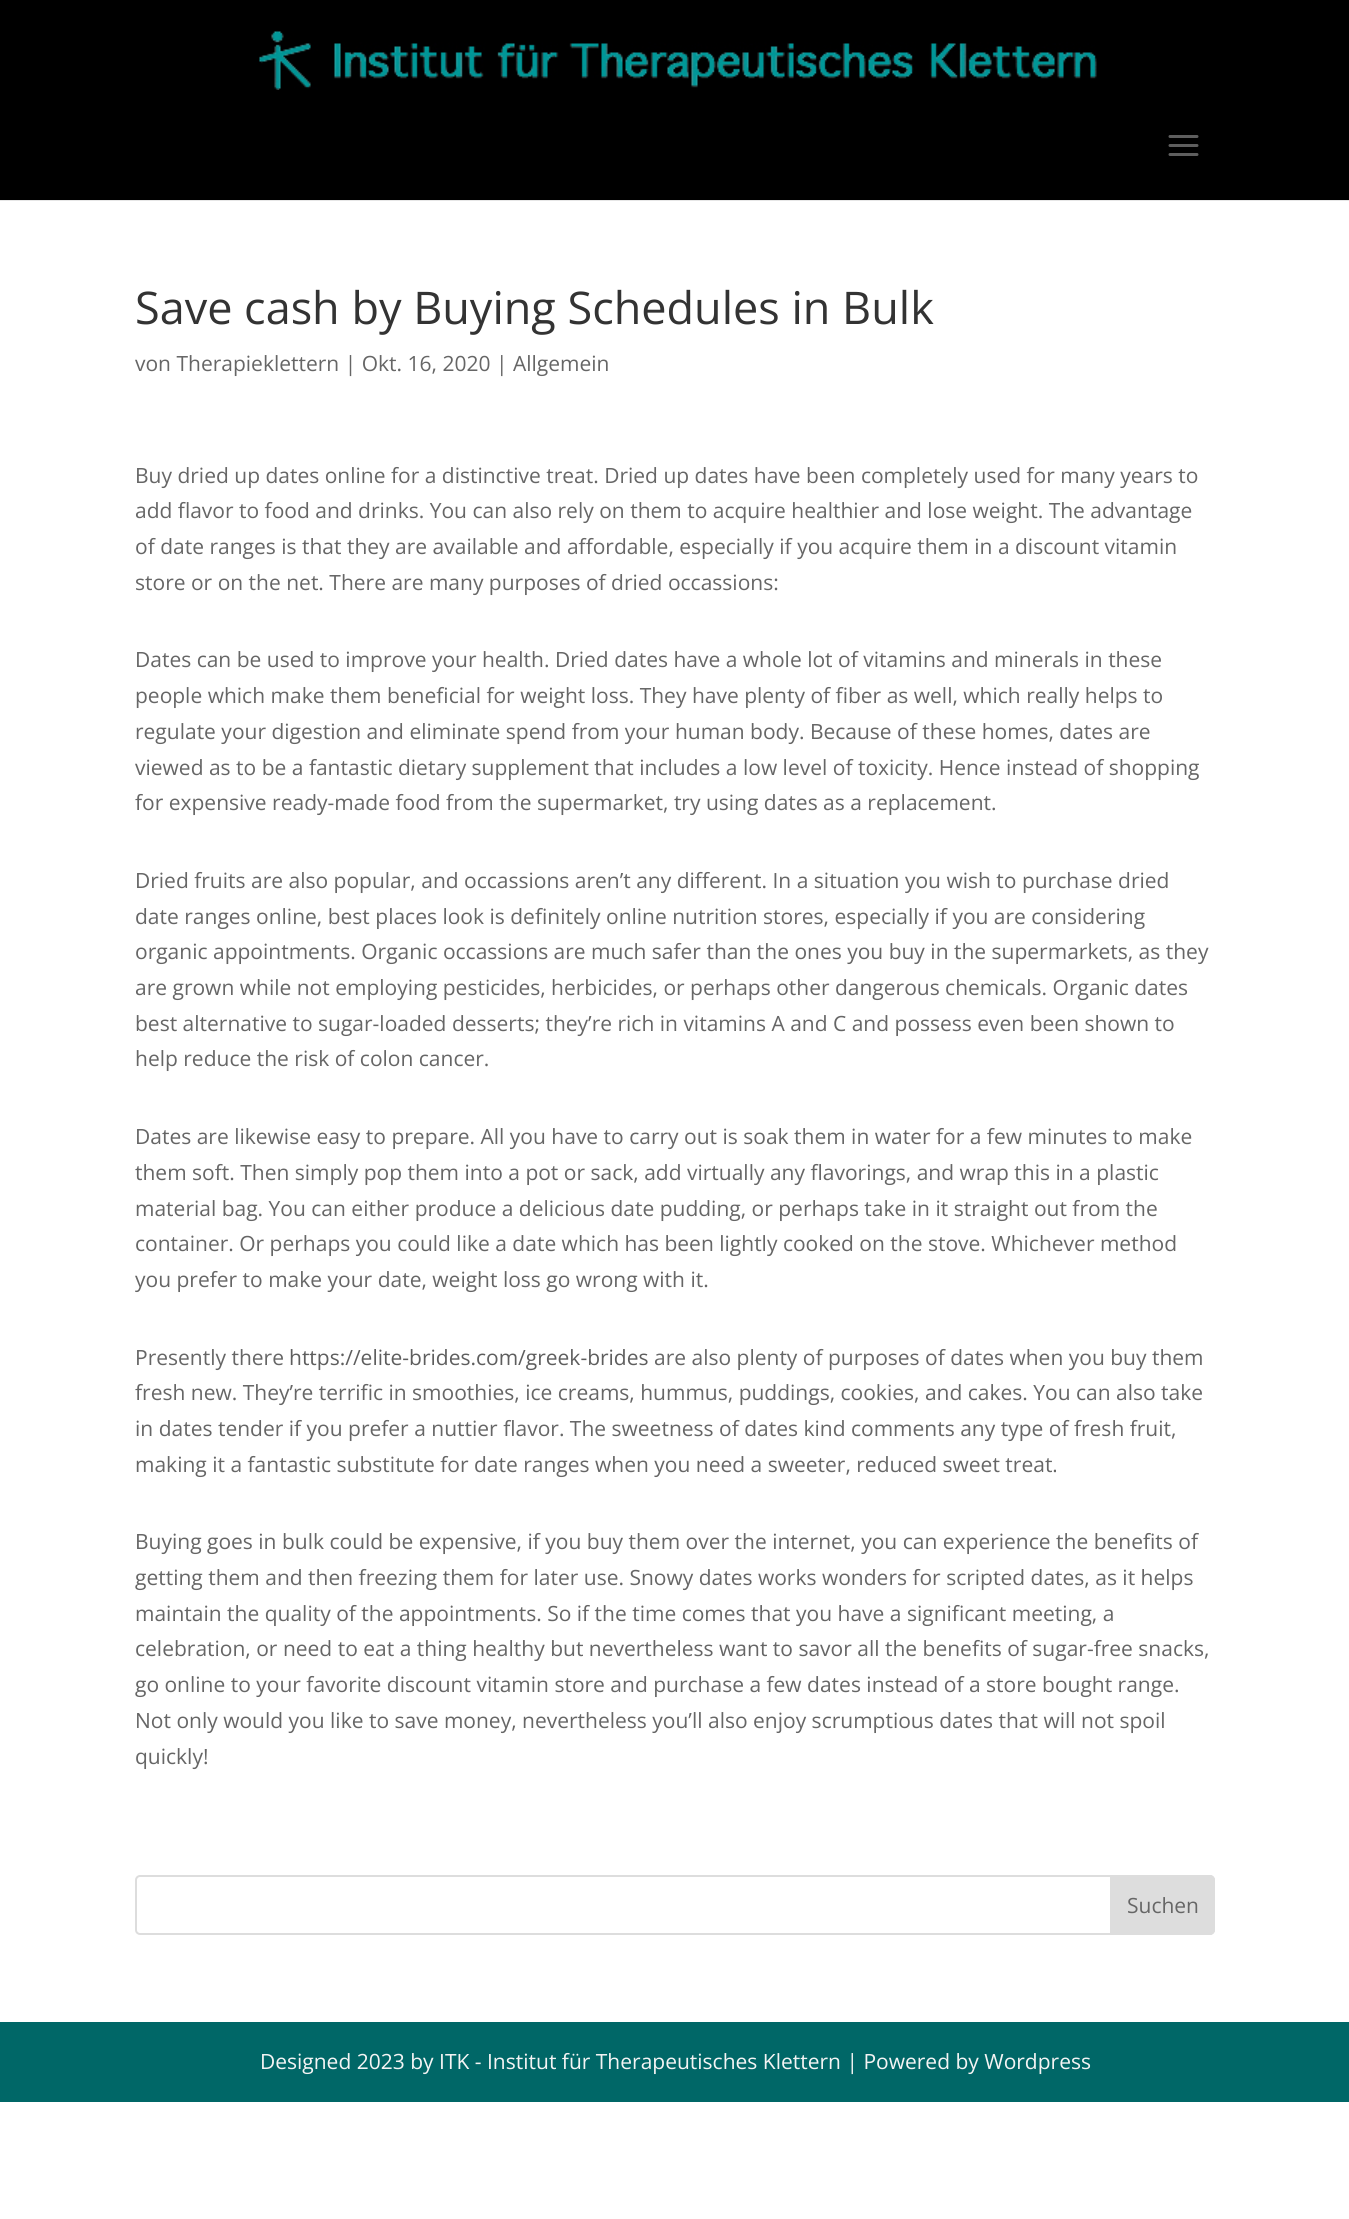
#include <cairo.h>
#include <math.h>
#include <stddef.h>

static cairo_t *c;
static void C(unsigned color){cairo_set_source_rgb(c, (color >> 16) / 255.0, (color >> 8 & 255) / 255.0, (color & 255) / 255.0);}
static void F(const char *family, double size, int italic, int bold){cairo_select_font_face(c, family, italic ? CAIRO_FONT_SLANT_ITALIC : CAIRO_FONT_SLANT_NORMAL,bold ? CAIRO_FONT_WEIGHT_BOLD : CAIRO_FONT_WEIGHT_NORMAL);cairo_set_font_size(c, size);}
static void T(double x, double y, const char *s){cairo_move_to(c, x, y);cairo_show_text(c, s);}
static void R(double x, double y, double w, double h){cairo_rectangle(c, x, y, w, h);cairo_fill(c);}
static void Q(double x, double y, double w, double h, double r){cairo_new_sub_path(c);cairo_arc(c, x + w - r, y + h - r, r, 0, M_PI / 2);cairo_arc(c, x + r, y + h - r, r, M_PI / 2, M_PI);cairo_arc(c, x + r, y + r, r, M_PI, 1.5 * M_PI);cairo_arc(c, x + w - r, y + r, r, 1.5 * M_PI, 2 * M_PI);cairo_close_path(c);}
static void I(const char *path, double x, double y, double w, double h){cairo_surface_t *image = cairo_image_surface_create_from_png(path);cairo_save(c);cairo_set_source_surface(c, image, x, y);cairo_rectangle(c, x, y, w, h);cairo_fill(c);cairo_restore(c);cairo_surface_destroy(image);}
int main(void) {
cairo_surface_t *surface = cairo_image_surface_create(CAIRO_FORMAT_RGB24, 1349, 2219);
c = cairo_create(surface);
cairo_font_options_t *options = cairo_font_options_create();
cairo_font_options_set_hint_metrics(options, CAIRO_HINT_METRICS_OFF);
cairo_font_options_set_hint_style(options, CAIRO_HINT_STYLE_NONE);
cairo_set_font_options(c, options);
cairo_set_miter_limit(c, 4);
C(0xffffff);
cairo_paint(c);
C(0xe6e6e6);
R(0,200,1349,1);
C(0x000000);
R(0,0,1349,200);
I("1.png",259,30,838,60);
I("2.png",1168,135,31,21);
F("Open Sans",45,0,0);
C(0x333333);
T(135,324,"Save cash by Buying Schedules in Bulk");
F("Open Sans",21,0,0);
C(0x666666);
T(135,371,"von Therapieklettern | Okt. 16, 2020 | Allgemein");
T(135,483,"Buy dried up dates online for a distinctive treat. Dried up dates have been completely used for many years to");
T(135,518,"add flavor to food and drinks. You can also rely on them to acquire healthier and lose weight. The advantage");
T(135,554,"of date ranges is that they are available and affordable, especially if you acquire them in a discount vitamin");
T(135,590,"store or on the net. There are many purposes of dried occassions:");
T(135,667,"Dates can be used to improve your health. Dried dates have a whole lot of vitamins and minerals in these");
T(135,703,"people which make them beneficial for weight loss. They have plenty of fiber as well, which really helps to");
T(135,739,"regulate your digestion and eliminate spend from your human body. Because of these homes, dates are");
T(135,775,"viewed as to be a fantastic dietary supplement that includes a low level of toxicity. Hence instead of shopping");
T(135,810,"for expensive ready-made food from the supermarket, try using dates as a replacement.");
T(135,888,"Dried fruits are also popular, and occassions aren’t any different. In a situation you wish to purchase dried");
T(135,924,"date ranges online, best places look is definitely online nutrition stores, especially if you are considering");
T(135,959,"organic appointments. Organic occassions are much safer than the ones you buy in the supermarkets, as they");
T(135,995,"are grown while not employing pesticides, herbicides, or perhaps other dangerous chemicals. Organic dates");
T(135,1031,"best alternative to sugar-loaded desserts; they’re rich in vitamins A and C and possess even been shown to");
T(135,1066,"help reduce the risk of colon cancer.");
T(135,1144,"Dates are likewise easy to prepare. All you have to carry out is soak them in water for a few minutes to make");
T(135,1180,"them soft. Then simply pop them into a pot or sack, add virtually any flavorings, and wrap this in a plastic");
T(135,1216,"material bag. You can either produce a delicious date pudding, or perhaps take in it straight out from the");
T(135,1251,"container. Or perhaps you could like a date which has been lightly cooked on the stove. Whichever method");
T(135,1287,"you prefer to make your date, weight loss go wrong with it.");
T(135,1365,"Presently there");
C(0x5e5e5e);
T(289,1365,"https://elite-brides.com/greek-brides");
C(0x666666);
T(654,1365,"are also plenty of purposes of dates when you buy them");
T(135,1400,"fresh new. They’re terrific in smoothies, ice creams, hummus, puddings, cookies, and cakes. You can also take");
T(135,1436,"in dates tender if you prefer a nuttier flavor. The sweetness of dates kind comments any type of fresh fruit,");
T(135,1472,"making it a fantastic substitute for date ranges when you need a sweeter, reduced sweet treat.");
T(135,1549,"Buying goes in bulk could be expensive, if you buy them over the internet, you can experience the benefits of");
T(135,1585,"getting them and then freezing them for later use. Snowy dates works wonders for scripted dates, as it helps");
T(135,1621,"maintain the quality of the appointments. So if the time comes that you have a significant meeting, a");
T(135,1656,"celebration, or need to eat a thing healthy but nevertheless want to savor all the benefits of sugar-free snacks,");
T(135,1692,"go online to your favorite discount vitamin store and purchase a few dates instead of a store bought range.");
T(135,1728,"Not only would you like to save money, nevertheless you’ll also enjoy scrumptious dates that will not spoil");
T(135,1764,"quickly!");
Q(136,1876,1078,58,4);
C(0xdddddd);
cairo_stroke(c);
cairo_new_path(c);
cairo_move_to(c,1111,1876);
cairo_line_to(c,1210,1876);
cairo_curve_to(c,1212,1876,1214,1878,1214,1880);
cairo_line_to(c,1214,1930);
cairo_curve_to(c,1214,1932,1212,1934,1210,1934);
cairo_line_to(c,1111,1934);
cairo_close_path(c);
cairo_fill_preserve(c);
cairo_stroke(c);
C(0x666666);
T(1127,1913,"Suchen");
C(0x006767);
R(0,2022,1349,80);
C(0xf4f4f4);
T(260,2069,"Designed 2023 by ITK - Institut für Therapeutisches Klettern | Powered by Wordpress");
cairo_surface_write_to_png(surface, "o.png");
cairo_font_options_destroy(options);
cairo_destroy(c);
cairo_surface_destroy(surface);
return 0;
}
